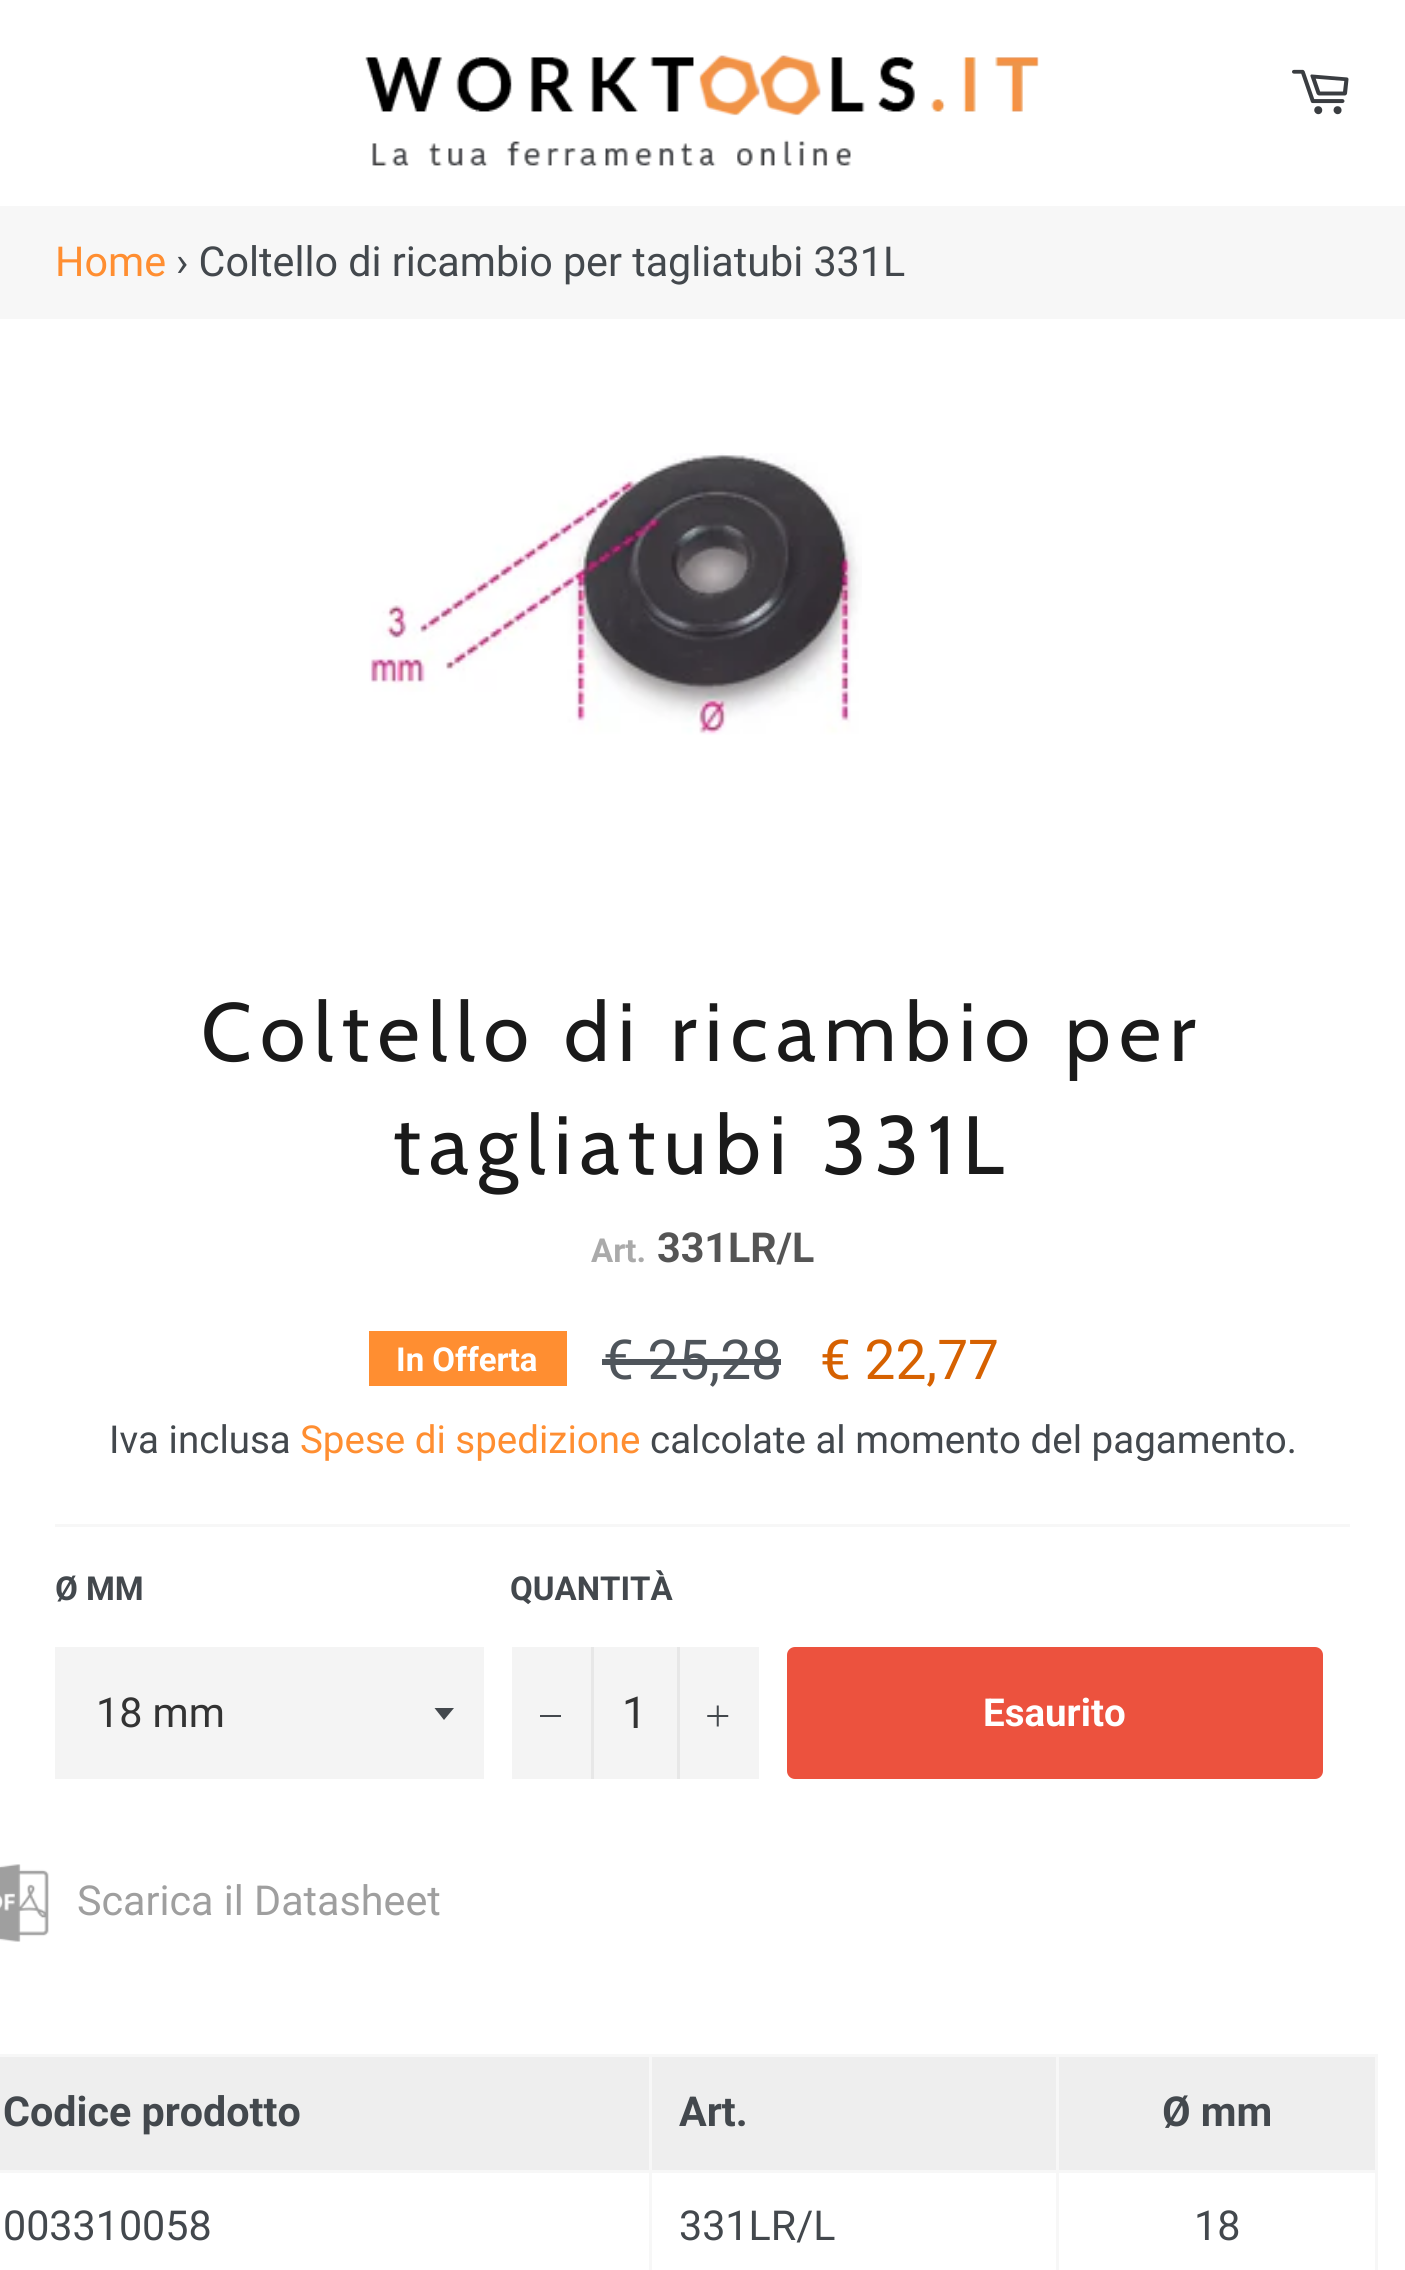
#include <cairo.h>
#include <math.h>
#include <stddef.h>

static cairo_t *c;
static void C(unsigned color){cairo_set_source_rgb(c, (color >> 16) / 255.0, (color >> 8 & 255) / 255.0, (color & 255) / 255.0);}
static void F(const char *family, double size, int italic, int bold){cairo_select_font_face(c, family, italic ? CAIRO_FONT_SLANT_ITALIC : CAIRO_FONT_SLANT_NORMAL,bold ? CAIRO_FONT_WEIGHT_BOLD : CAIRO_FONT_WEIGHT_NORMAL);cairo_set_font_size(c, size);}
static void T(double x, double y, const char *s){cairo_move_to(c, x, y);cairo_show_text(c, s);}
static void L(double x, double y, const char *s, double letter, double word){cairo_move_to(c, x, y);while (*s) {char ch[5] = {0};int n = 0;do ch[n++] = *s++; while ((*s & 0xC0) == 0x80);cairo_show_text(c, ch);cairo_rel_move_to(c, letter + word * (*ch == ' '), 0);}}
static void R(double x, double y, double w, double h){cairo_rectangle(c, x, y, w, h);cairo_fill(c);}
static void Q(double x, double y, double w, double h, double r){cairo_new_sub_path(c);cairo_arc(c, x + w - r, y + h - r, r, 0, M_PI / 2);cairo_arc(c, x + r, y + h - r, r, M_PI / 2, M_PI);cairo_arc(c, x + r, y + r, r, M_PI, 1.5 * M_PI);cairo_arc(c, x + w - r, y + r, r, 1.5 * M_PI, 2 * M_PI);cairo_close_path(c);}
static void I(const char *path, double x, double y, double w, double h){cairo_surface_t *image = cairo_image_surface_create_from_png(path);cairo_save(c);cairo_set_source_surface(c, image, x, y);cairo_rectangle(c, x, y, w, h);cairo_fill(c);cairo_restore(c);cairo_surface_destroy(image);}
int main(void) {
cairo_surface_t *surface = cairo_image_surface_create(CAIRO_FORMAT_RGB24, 1405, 2270);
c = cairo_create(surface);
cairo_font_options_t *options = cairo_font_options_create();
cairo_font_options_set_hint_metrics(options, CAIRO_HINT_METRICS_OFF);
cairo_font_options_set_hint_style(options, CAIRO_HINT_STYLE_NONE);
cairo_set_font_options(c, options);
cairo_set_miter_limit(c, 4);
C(0xf7f7f7);
cairo_paint(c);
C(0xffffff);
R(0,0,1405,206);
I("1.png",365,55,674,111);
I("2.png",1292,69,57,46);
F("Roboto",41.25,0,0);
C(0xff8e31);
T(55,276,"Home");
C(0x43484d);
T(176,276,"› Coltello di ricambio per tagliatubi 331L");
C(0xffffff);
R(0,319,1405,1951);
I("3.png",369,453,493,282);
F("Cabin",82.5,0,0);
C(0x1a1a1a);
L(201,1061,"Coltello di ricambio per",8.25,0);
L(393,1174,"tagliatubi 331L",8.25,0);
F("Roboto",33,0,1);
C(0xaaaaaa);
T(591,1262,"Art.");
F("Roboto",41.25,0,1);
C(0x555555);
T(657,1262,"331LR/L");
C(0xff8e31);
R(369,1331,198,55);
F("Roboto",33,0,1);
C(0xffffff);
T(396,1371,"In Offerta");
F("Roboto",55,0,0);
C(0x4f555b);
T(603,1379,"€ 25,28");
R(602,1359,179,6);
C(0xd66100);
T(820,1379,"€ 22,77");
F("Roboto",38.5,0,0);
C(0x43484d);
T(109,1453,"Iva inclusa");
C(0xff8e31);
T(300,1453,"Spese di spedizione");
C(0x43484d);
T(650,1453,"calcolate al momento del pagamento.");
C(0xf7f7f7);
R(55,1524,1295,3);
F("Roboto",33,0,1);
C(0x43484d);
T(55,1600,"Ø MM");
C(0xf4f4f4);
R(55,1647,429,132);
C(0x43484d);
cairo_new_path(c);
cairo_move_to(c,434.5,1708);
cairo_line_to(c,444,1720);
cairo_line_to(c,454,1708);
cairo_close_path(c);
cairo_fill(c);
F("Roboto",41.25,0,0);
C(0x333333);
T(96,1727,"18 mm");
F("Roboto",33,0,1);
C(0x43484d);
T(510,1600,"QUANTITÀ");
C(0xf4f4f4);
R(512,1647,247,132);
C(0xe7e7e7);
R(591,1647,3,132);
C(0x43484d);
R(540,1715,21,2);
F("Roboto",44,0,0);
C(0x333333);
T(622,1728,"1");
C(0xe7e7e7);
R(677,1647,3,132);
I("4.png",707,1705,22,22);
C(0xec523e);
Q(787,1647,536,132,8);
cairo_fill(c);
F("Roboto",38.5,0,1);
C(0xffffff);
T(983,1726,"Esaurito");
I("5.png",0,1864,49,78);
F("Roboto",41.25,0,0);
C(0x9f9f9f);
T(77,1915,"Scarica il Datasheet");
C(0xeeeeee);
R(0,2057,649,113);
C(0xf7f7f7);
R(1056,2054,322,3);
R(1056,2170,322,3);
R(1056,2170,3,100);
R(649,2170,410,3);
R(1056,2054,3,119);
R(649,2054,410,3);
R(649,2170,3,100);
R(0,2170,652,3);
R(649,2054,3,119);
R(0,2054,652,3);
F("Roboto",41.25,0,1);
C(0x43484d);
T(3,2126,"Codice prodotto");
C(0xeeeeee);
R(652,2057,404,113);
C(0x43484d);
T(679,2126,"Art.");
C(0xeeeeee);
R(1059,2057,316,113);
C(0xf7f7f7);
R(1375,2170,3,100);
R(1375,2054,3,119);
C(0x43484d);
T(1162,2126,"Ø mm");
F("Roboto",41.25,0,0);
T(3,2240,"003310058");
T(679,2240,"331LR/L");
T(1194,2240,"18");
cairo_surface_write_to_png(surface, "o.png");
cairo_font_options_destroy(options);
cairo_destroy(c);
cairo_surface_destroy(surface);
return 0;
}
